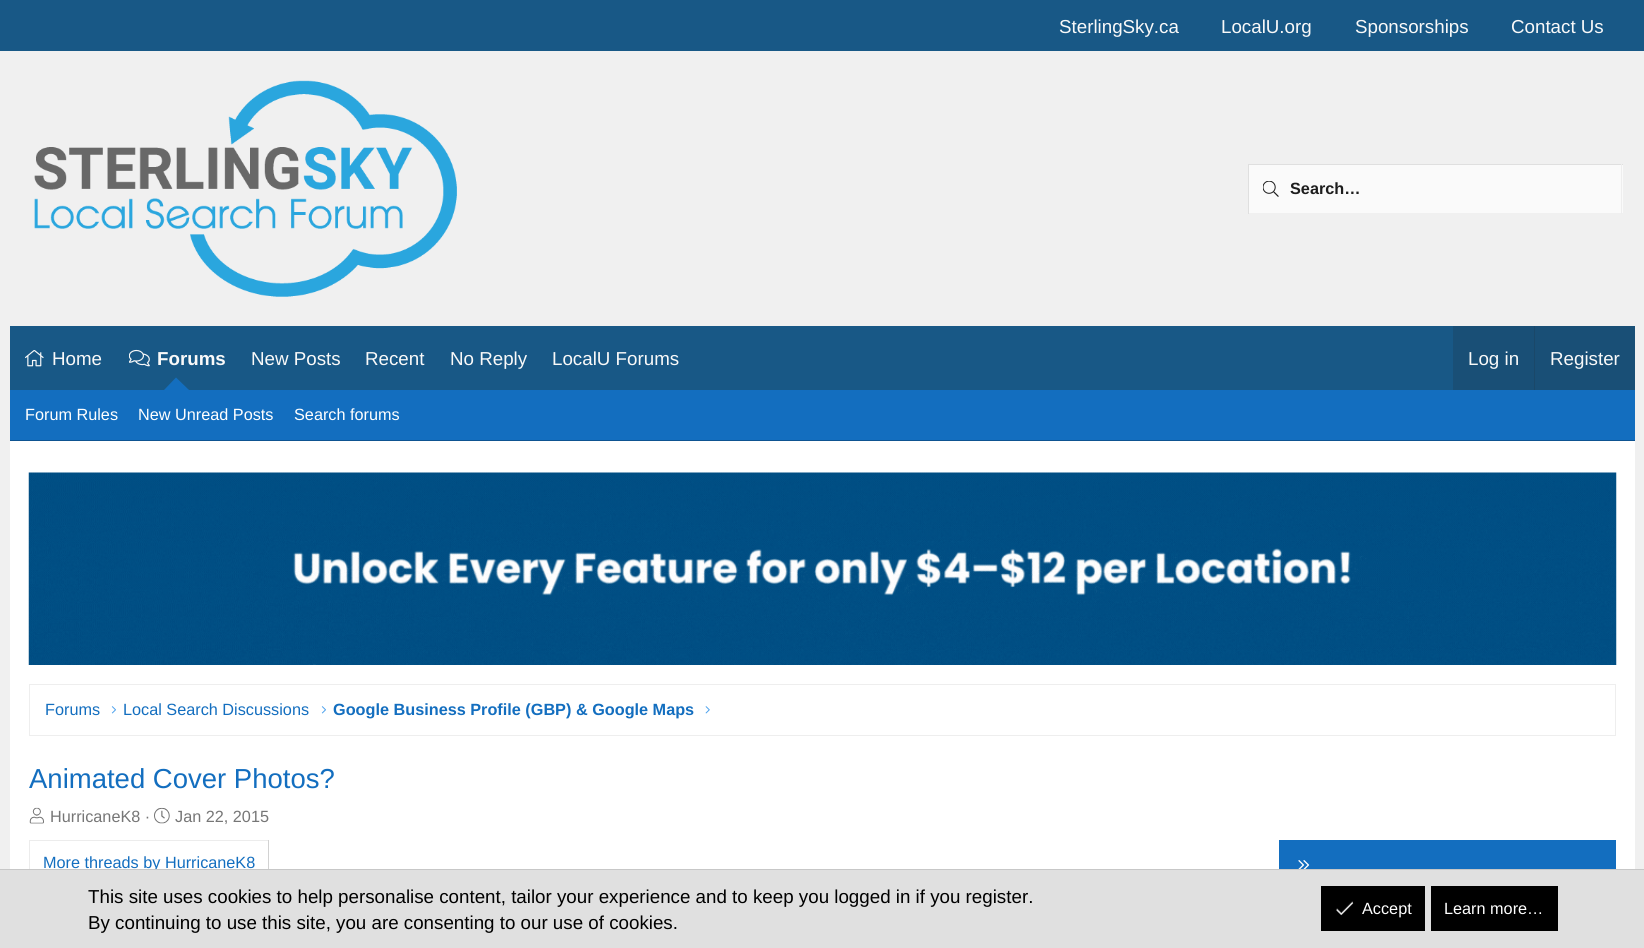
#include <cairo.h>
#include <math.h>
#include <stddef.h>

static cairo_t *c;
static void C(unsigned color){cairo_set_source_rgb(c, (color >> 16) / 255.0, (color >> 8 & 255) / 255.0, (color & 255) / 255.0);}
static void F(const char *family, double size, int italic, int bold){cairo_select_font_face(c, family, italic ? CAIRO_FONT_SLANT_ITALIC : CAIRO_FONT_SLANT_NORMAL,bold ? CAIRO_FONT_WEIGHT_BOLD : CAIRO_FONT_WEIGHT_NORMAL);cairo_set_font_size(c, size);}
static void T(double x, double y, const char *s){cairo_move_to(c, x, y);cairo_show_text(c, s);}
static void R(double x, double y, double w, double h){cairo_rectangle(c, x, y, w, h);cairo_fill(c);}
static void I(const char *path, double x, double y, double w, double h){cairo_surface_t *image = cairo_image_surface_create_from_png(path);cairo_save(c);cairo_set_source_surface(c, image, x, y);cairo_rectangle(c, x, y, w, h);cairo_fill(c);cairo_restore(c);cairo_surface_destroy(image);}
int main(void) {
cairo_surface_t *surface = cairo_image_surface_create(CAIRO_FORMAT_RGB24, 1644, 948);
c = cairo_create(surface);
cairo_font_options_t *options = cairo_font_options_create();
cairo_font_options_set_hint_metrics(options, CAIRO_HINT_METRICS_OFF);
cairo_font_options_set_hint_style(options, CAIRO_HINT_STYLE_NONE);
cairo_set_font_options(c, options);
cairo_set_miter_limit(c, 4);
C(0xf0f0f0);
cairo_paint(c);
C(0x185886);
R(0,0,1644,51);
F("Liberation Sans",18.75,0,0);
C(0xf9f9f9);
T(1059,33,"SterlingSky.ca");
T(1221,33,"LocalU.org");
T(1355,33,"Sponsorships");
T(1511,33,"Contact Us");
I("1.png",34,80,423,217);
C(0xfafafa);
R(1249,165,374,48);
I("2.png",1263,181,16,16);
C(0xdfdfdf);
R(1248,164,375,1);
C(0xeeeeee);
R(1621,164,1,50);
C(0xdfdfdf);
R(1248,164,1,50);
F("Liberation Sans",16.25,0,1);
C(0x1d1d1d);
T(1290,194,"Search…");
C(0x185886);
R(10,326,1443,64);
I("3.png",25,350,19,17);
F("Liberation Sans",18.75,0,0);
C(0xf9f9f9);
T(52,365,"Home");
I("4.png",129,349,21,18);
F("Liberation Sans",18.75,0,1);
T(157,365,"Forums");
C(0x136ebf);
cairo_new_path(c);
cairo_move_to(c,189,390);
cairo_line_to(c,164,390);
cairo_line_to(c,176,377.5);
cairo_close_path(c);
cairo_fill(c);
F("Liberation Sans",18.75,0,0);
C(0xf9f9f9);
T(251,365,"New Posts");
T(365,365,"Recent");
T(450,365,"No Reply");
T(552,365,"LocalU Forums");
C(0x194f76);
R(1453,326,182,64);
C(0xf9f9f9);
T(1468,365,"Log in");
C(0x1a4869);
R(1534,326,1,64);
C(0xf9f9f9);
T(1550,365,"Register");
C(0x136ebf);
R(10,390,1625,50);
C(0x0e5391);
R(10,440,1625,1);
F("Liberation Sans",16.25,0,0);
C(0xffffff);
T(25,420,"Forum Rules");
T(138,420,"New Unread Posts");
T(294,420,"Search forums");
R(10,441,1625,428);
I("5.png",28,472,1589,193);
cairo_rectangle(c,29.5,684.5,1586,51);
C(0xeeeeee);
cairo_set_line_width(c,1);
cairo_stroke(c);
C(0x136ebf);
T(45,715,"Forums");
I("6.png",111,706,5,8);
T(123,715,"Local Search Discussions");
I("6.png",321,706,5,8);
F("Liberation Sans",16.25,0,1);
T(333,715,"Google Business Profile (GBP) & Google Maps");
I("7.png",705,706,5,8);
F("Liberation Sans",27.5,0,0);
T(29,788,"Animated Cover Photos?");
I("8.png",29,807,15,17);
F("Liberation Sans",16.25,0,0);
C(0x767676);
T(50,822,"HurricaneK8 ·");
I("9.png",154,807,16,17);
T(175,822,"Jan 22, 2015");
C(0xececec);
R(29,840,240,1);
C(0xd2d2d2);
R(268,840,1,29);
C(0xececec);
R(29,840,1,29);
C(0x136ebf);
T(43,868,"More threads by HurricaneK8");
R(1279,840,337,29);
I("10.png",1298,860,12,9);
C(0xe0e0e0);
R(0,870,1644,78);
C(0xc7c7c7);
R(0,869,1644,1);
F("Liberation Sans",18.75,0,0);
C(0x000000);
T(88,903,"This site uses cookies to help personalise content, tailor your experience and to keep you logged in if you register.");
T(88,929,"By continuing to use this site, you are consenting to our use of cookies.");
R(1321,886,104,45);
I("11.png",1336,901,18,15);
F("Liberation Sans",16.25,0,0);
C(0xffffff);
T(1362,914,"Accept");
C(0x000000);
R(1431,886,127,45);
C(0xffffff);
T(1444,914,"Learn more…");
cairo_surface_write_to_png(surface, "o.png");
cairo_font_options_destroy(options);
cairo_destroy(c);
cairo_surface_destroy(surface);
return 0;
}
